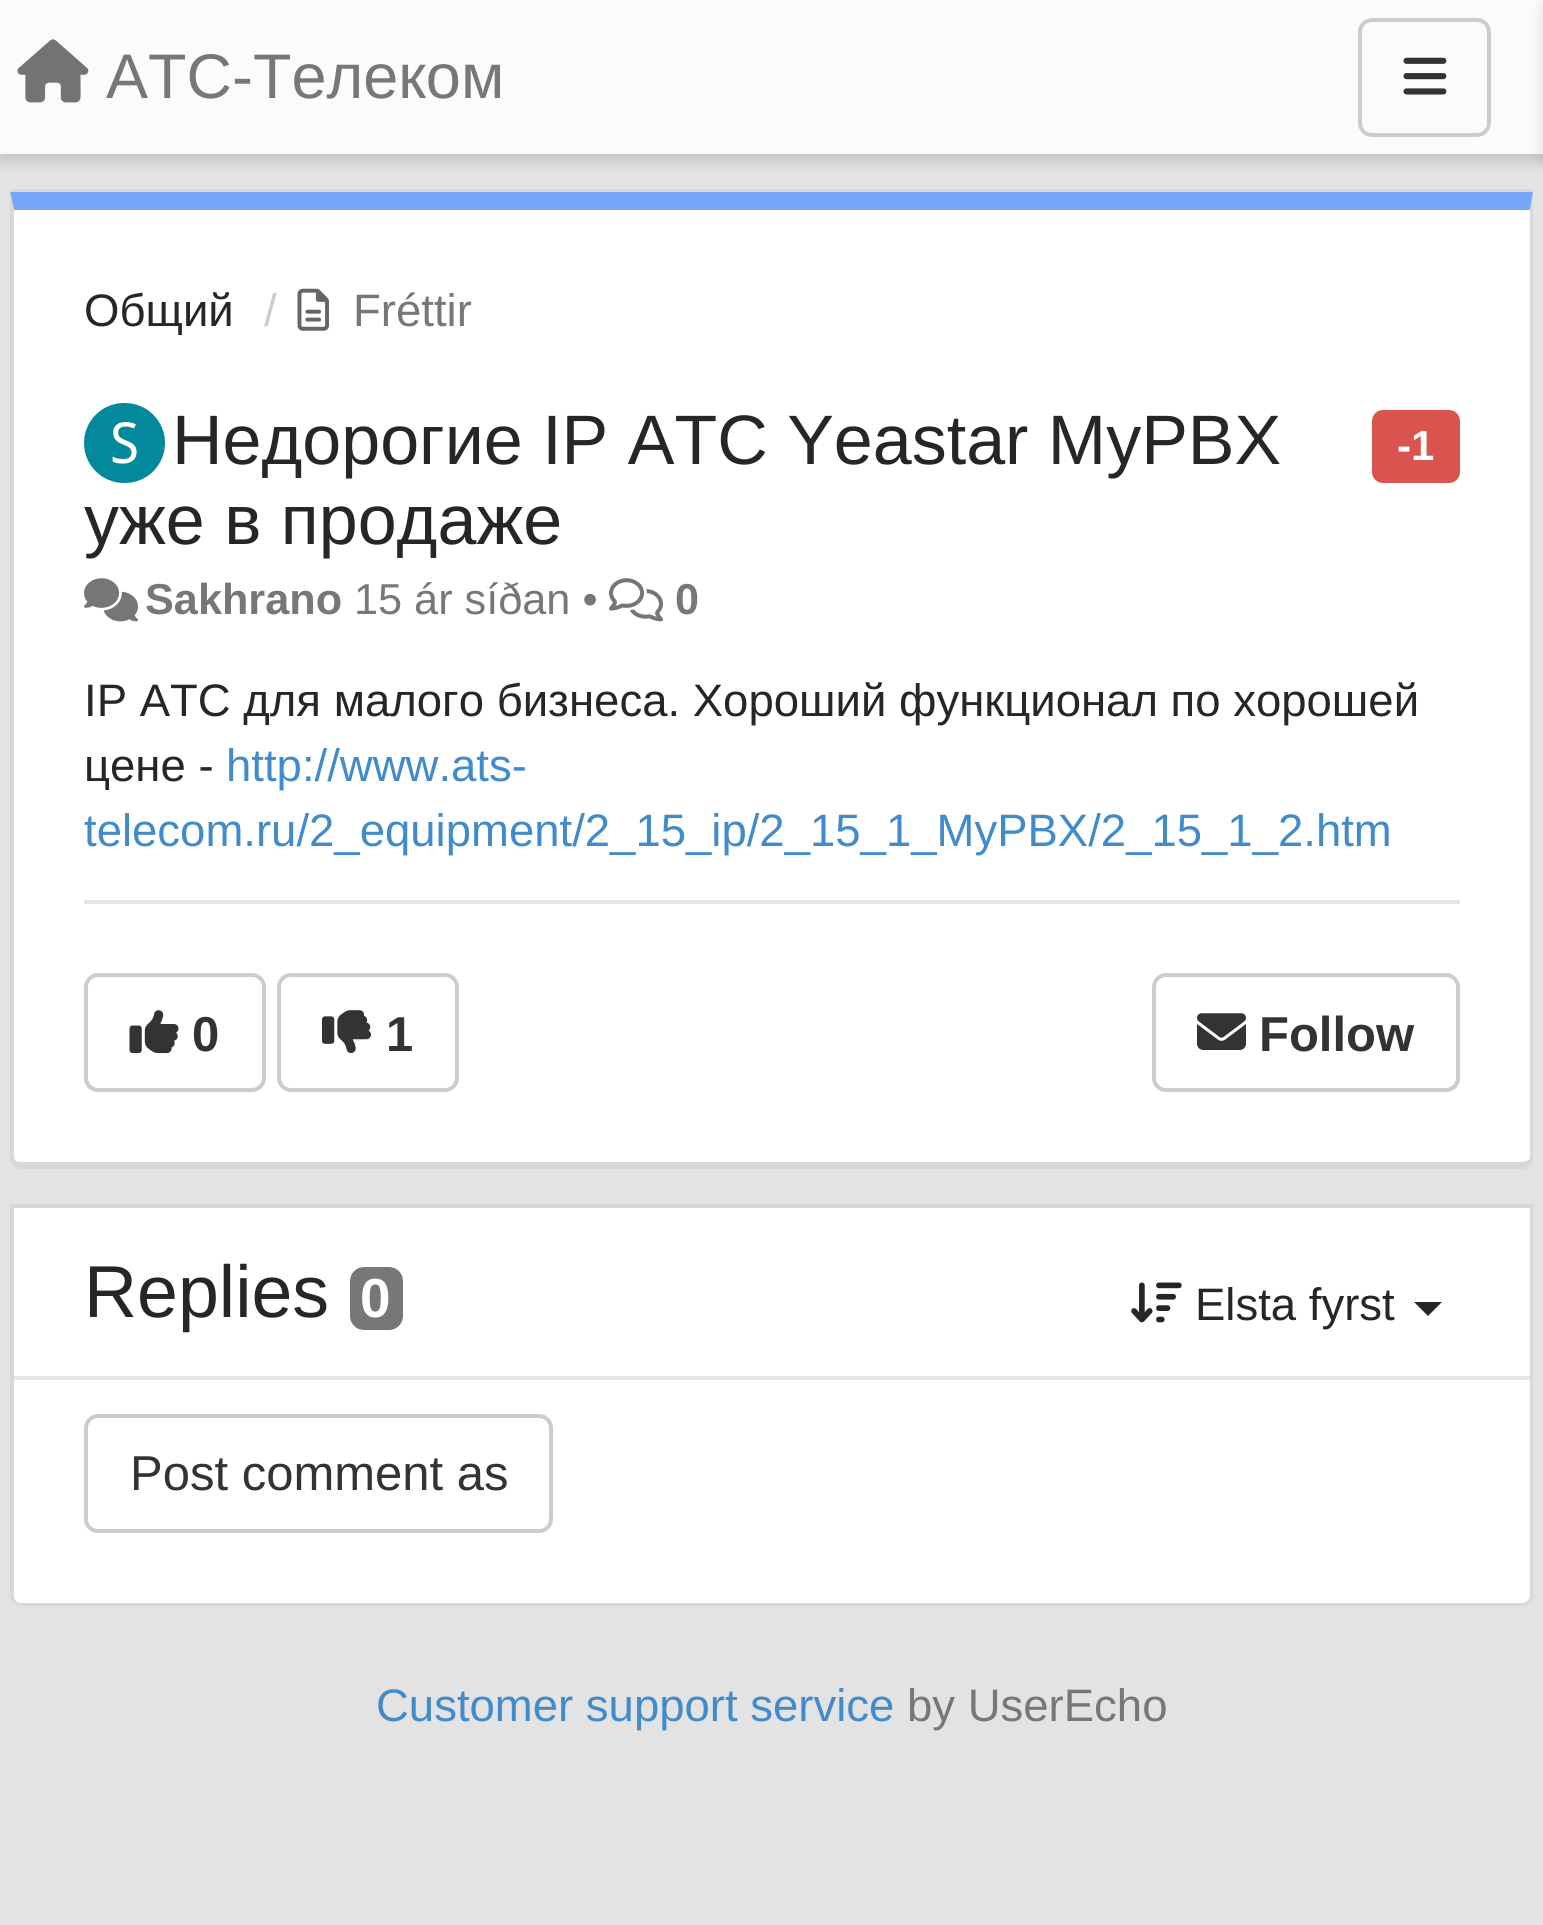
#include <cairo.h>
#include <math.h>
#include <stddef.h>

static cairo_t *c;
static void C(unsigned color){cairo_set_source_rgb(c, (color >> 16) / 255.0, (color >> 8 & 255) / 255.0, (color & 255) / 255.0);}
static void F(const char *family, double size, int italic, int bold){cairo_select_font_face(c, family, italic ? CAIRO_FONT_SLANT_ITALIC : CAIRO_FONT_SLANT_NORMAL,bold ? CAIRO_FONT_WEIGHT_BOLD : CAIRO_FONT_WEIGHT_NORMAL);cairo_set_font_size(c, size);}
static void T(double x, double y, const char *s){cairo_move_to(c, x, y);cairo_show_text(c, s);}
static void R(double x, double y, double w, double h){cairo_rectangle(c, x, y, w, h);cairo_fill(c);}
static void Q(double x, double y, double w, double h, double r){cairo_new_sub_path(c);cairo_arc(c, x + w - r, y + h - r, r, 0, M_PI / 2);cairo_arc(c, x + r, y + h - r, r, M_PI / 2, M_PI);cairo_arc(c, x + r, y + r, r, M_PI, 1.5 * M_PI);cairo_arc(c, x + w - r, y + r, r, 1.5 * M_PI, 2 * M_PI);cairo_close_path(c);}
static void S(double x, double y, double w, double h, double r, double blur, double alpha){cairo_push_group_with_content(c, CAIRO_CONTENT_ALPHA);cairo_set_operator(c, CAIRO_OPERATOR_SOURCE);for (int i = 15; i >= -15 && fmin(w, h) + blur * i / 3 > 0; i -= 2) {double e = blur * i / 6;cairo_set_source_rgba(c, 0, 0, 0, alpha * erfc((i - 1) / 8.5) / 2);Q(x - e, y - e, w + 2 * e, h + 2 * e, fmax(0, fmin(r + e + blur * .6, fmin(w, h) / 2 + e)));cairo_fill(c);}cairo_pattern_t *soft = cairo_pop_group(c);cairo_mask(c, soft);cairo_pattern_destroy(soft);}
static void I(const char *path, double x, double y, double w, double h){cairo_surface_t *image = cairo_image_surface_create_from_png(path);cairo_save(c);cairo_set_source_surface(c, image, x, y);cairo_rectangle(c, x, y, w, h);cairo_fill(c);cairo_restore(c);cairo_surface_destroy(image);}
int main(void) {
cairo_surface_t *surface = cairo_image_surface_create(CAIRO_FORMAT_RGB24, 1543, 1925);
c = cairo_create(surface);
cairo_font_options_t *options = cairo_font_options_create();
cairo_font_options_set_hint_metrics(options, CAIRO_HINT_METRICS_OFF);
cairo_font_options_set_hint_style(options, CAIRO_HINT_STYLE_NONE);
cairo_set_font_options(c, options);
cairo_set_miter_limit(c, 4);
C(0xe3e3e3);
cairo_paint(c);
C(0x000000);
S(0,7,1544,154,0,7,.15);
C(0xfbfbfb);
R(0,0,1543,154);
I("1.png",17,39,72,64);
F("Liberation Sans",63,0,0);
C(0x777777);
T(106,98,"АТС-Телеком");
Q(1360,20,129,115,12);
C(0xcccccc);
cairo_set_line_width(c,4);
cairo_stroke(c);
I("2.png",1403,57,44,38);
C(0x000000);
S(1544,7,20,154,0,7,.15);
C(0xd8d8d8);
R(11,189,1522,4);
C(0xffffff);
cairo_new_path(c);
cairo_move_to(c,14,210);
cairo_line_to(c,1530,210);
cairo_line_to(c,1530,1158);
cairo_curve_to(c,1530,1160,1526,1162,1522,1162);
cairo_line_to(c,21,1162);
cairo_curve_to(c,17,1162,14,1160,14,1158);
cairo_close_path(c);
cairo_fill(c);
C(0x76a7fa);
cairo_new_path(c);
cairo_move_to(c,14,210);
cairo_line_to(c,1530,210);
cairo_line_to(c,1533,192);
cairo_line_to(c,10,192);
cairo_close_path(c);
cairo_fill(c);
C(0xd8d8d8);
cairo_new_path(c);
cairo_move_to(c,1533,192);
cairo_line_to(c,1530,210);
cairo_line_to(c,1530,1158);
cairo_line_to(c,1529,1160);
cairo_line_to(c,1531,1165);
cairo_curve_to(c,1532,1163,1533,1160,1533,1158);
cairo_close_path(c);
cairo_fill(c);
cairo_new_path(c);
cairo_move_to(c,21,1169);
cairo_line_to(c,1522,1169);
cairo_curve_to(c,1526,1169,1529,1167,1531,1165);
cairo_line_to(c,1529,1160);
cairo_curve_to(c,1527,1161,1525,1162,1522,1162);
cairo_line_to(c,21,1162);
cairo_curve_to(c,18,1162,16,1161,15,1160);
cairo_line_to(c,13,1165);
cairo_curve_to(c,15,1167,18,1169,21,1169);
cairo_close_path(c);
cairo_fill(c);
cairo_new_path(c);
cairo_move_to(c,14,210);
cairo_line_to(c,14,1158);
cairo_line_to(c,15,1160);
cairo_line_to(c,13,1165);
cairo_line_to(c,10,1161);
cairo_line_to(c,10,192);
cairo_close_path(c);
cairo_fill(c);
F("Liberation Sans",45.5,0,0);
C(0x262626);
T(84,326,"Общий");
C(0xcccccc);
T(264,326,"/");
I("3.png",297,288,32,43);
C(0x777777);
T(353,326,"Fréttir");
C(0x03899c);
Q(84,403,81,80,40);
cairo_fill(c);
I("4.png",112,422,25,42);
F("Liberation Sans",70,0,0);
C(0x262626);
T(172,464,"Недорогие IP АТС Yeastar MyPBX");
T(84,544,"уже в продаже");
C(0xd9534f);
Q(1372,410,88,73,11);
cairo_fill(c);
F("Liberation Sans",42,0,1);
C(0xffffff);
T(1397,460,"-1");
I("5.png",84,578,54,44);
F("Liberation Sans",43.25,0,1);
C(0x777777);
T(145,614,"Sakhrano");
F("Liberation Sans",43.25,0,0);
T(354,614,"15 ár síðan •");
I("6.png",609,578,54,44);
F("Liberation Sans",43.25,0,1);
T(675,614,"0");
F("Liberation Sans",45.5,0,0);
C(0x262626);
T(84,716,"IP АТС для малого бизнеса. Хороший функционал по хорошей");
T(84,781,"цене -");
C(0x428bca);
T(226,781,"http://www.ats-");
T(84,846,"telecom.ru/2_equipment/2_15_ip/2_15_1_MyPBX/2_15_1_2.htm");
C(0xe5e5e5);
R(84,900,1376,4);
Q(86,975,178,115,12);
C(0xcccccc);
cairo_stroke(c);
I("7.png",129,1010,50,44);
F("Liberation Sans",49,0,1);
C(0x333333);
T(192,1051,"0");
Q(279,975,178,115,12);
C(0xcccccc);
cairo_stroke(c);
I("8.png",322,1010,49,44);
C(0x333333);
T(386,1051,"1");
Q(1154,975,304,115,12);
C(0xcccccc);
cairo_stroke(c);
I("9.png",1197,1013,49,37);
C(0x333333);
T(1259,1051,"Follow");
C(0xd8d8d8);
R(11,1204,1522,4);
C(0xffffff);
cairo_new_path(c);
cairo_move_to(c,14,1208);
cairo_line_to(c,1530,1208);
cairo_line_to(c,1530,1596);
cairo_curve_to(c,1530,1600,1527,1603,1523,1603);
cairo_line_to(c,21,1603);
cairo_curve_to(c,17,1603,14,1600,14,1596);
cairo_close_path(c);
cairo_fill(c);
C(0xd8d8d8);
cairo_set_fill_rule(c,CAIRO_FILL_RULE_EVEN_ODD);
cairo_new_path(c);
cairo_move_to(c,10,1208);
cairo_line_to(c,1533,1208);
cairo_line_to(c,1533,1596);
cairo_curve_to(c,1533,1602,1528,1606,1522,1606);
cairo_line_to(c,21,1606);
cairo_curve_to(c,15,1606,10,1602,10,1596);
cairo_close_path(c);
cairo_move_to(c,14,1208);
cairo_line_to(c,1530,1208);
cairo_line_to(c,1530,1596);
cairo_curve_to(c,1530,1600,1526,1603,1522,1603);
cairo_line_to(c,21,1603);
cairo_curve_to(c,17,1603,14,1600,14,1596);
cairo_close_path(c);
cairo_fill(c);
F("Liberation Sans",73.5,0,0);
C(0x262626);
T(84,1317,"Replies");
C(0x777777);
Q(350,1267,53,63,14);
cairo_fill(c);
F("Liberation Sans",55,0,1);
C(0xffffff);
T(360,1317,"0");
I("10.png",1131,1282,51,41);
F("Liberation Sans",45.5,0,0);
C(0x262626);
T(1195,1320,"Elsta fyrst");
cairo_set_fill_rule(c,CAIRO_FILL_RULE_WINDING);
cairo_new_path(c);
cairo_move_to(c,1414,1302);
cairo_line_to(c,1442,1302);
cairo_line_to(c,1428,1316);
cairo_close_path(c);
cairo_fill(c);
C(0xe1e8ed);
R(14,1376,1516,4);
Q(86,1416,465,115,12);
C(0xcccccc);
cairo_stroke(c);
F("Liberation Sans",49,0,0);
C(0x333333);
T(130,1490,"Post comment as");
F("Liberation Sans",45.5,0,0);
C(0x428bca);
T(376,1721,"Customer support service");
C(0x777777);
T(907,1721,"by UserEcho");
cairo_surface_write_to_png(surface, "o.png");
cairo_font_options_destroy(options);
cairo_destroy(c);
cairo_surface_destroy(surface);
return 0;
}
